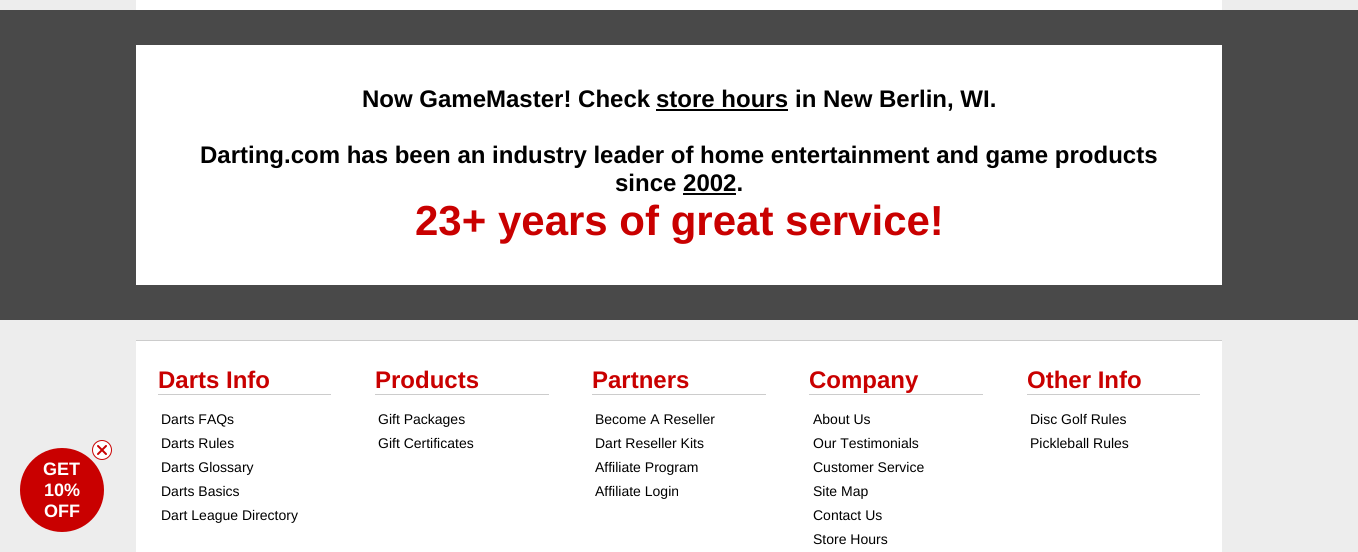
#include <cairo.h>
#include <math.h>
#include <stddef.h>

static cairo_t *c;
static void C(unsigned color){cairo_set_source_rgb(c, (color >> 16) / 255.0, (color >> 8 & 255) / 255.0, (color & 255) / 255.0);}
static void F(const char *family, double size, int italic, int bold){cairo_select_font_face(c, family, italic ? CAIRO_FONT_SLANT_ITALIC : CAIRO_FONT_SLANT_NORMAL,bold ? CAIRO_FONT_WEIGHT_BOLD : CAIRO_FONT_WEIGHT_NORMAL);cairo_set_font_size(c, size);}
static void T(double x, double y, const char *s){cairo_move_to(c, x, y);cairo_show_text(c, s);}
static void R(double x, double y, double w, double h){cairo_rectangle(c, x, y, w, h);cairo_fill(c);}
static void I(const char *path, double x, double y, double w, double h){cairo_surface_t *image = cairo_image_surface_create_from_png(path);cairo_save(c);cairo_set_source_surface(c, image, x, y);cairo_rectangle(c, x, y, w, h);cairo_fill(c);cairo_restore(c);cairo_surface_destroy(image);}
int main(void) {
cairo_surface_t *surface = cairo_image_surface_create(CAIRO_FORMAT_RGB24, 1358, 552);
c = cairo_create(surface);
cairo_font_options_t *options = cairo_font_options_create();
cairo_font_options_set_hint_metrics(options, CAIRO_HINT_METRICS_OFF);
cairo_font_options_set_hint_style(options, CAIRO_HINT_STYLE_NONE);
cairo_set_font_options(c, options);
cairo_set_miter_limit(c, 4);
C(0xededed);
cairo_paint(c);
C(0xc90000);
cairo_arc(c,62,490,42,0,2 * M_PI);
cairo_fill(c);
I("1.png",92,440,20,20);
F("Liberation Sans",18,0,1);
C(0xffffff);
T(43,475,"GET");
T(44,496,"10%");
T(44,517,"OFF");
R(136,0,1086,10);
C(0x494949);
R(0,10,1358,310);
C(0xffffff);
R(136,45,1086,240);
F("Liberation Sans",24,0,1);
C(0x000000);
T(362,107,"Now GameMaster! Check");
T(656,107,"store hours");
R(656,109,132,2);
T(795,107,"in New Berlin, WI.");
T(200,163,"Darting.com has been an industry leader of home entertainment and game products");
T(615,191,"since 2002.");
C(0x050505);
R(683,193,53,2);
F("Liberation Sans",42,0,1);
C(0xc90000);
T(415,235,"23+ years of great service!");
C(0xffffff);
R(136,341,1086,211);
C(0xcccccc);
R(136,340,1086,1);
R(158,394,173,1);
F("Liberation Sans",24,0,1);
C(0xc90000);
T(158,388,"Darts Info");
F("Liberation Sans",14,0,0);
C(0x000000);
T(161,424,"Darts FAQs");
T(161,448,"Darts Rules");
T(161,472,"Darts Glossary");
T(161,496,"Darts Basics");
T(161,520,"Dart League Directory");
C(0xcccccc);
R(375,394,174,1);
F("Liberation Sans",24,0,1);
C(0xc90000);
T(375,388,"Products");
F("Liberation Sans",14,0,0);
C(0x000000);
T(378,424,"Gift Packages");
T(378,448,"Gift Certificates");
C(0xcccccc);
R(592,394,174,1);
F("Liberation Sans",24,0,1);
C(0xc90000);
T(592,388,"Partners");
F("Liberation Sans",14,0,0);
C(0x000000);
T(595,424,"Become A Reseller");
T(595,448,"Dart Reseller Kits");
T(595,472,"Affiliate Program");
T(595,496,"Affiliate Login");
C(0xcccccc);
R(809,394,174,1);
F("Liberation Sans",24,0,1);
C(0xc90000);
T(809,388,"Company");
F("Liberation Sans",14,0,0);
C(0x000000);
T(813,424,"About Us");
T(813,448,"Our Testimonials");
T(813,472,"Customer Service");
T(813,496,"Site Map");
T(813,520,"Contact Us");
T(813,544,"Store Hours");
C(0xcccccc);
R(1027,394,173,1);
F("Liberation Sans",24,0,1);
C(0xc90000);
T(1027,388,"Other Info");
F("Liberation Sans",14,0,0);
C(0x000000);
T(1030,424,"Disc Golf Rules");
T(1030,448,"Pickleball Rules");
cairo_surface_write_to_png(surface, "o.png");
cairo_font_options_destroy(options);
cairo_destroy(c);
cairo_surface_destroy(surface);
return 0;
}
